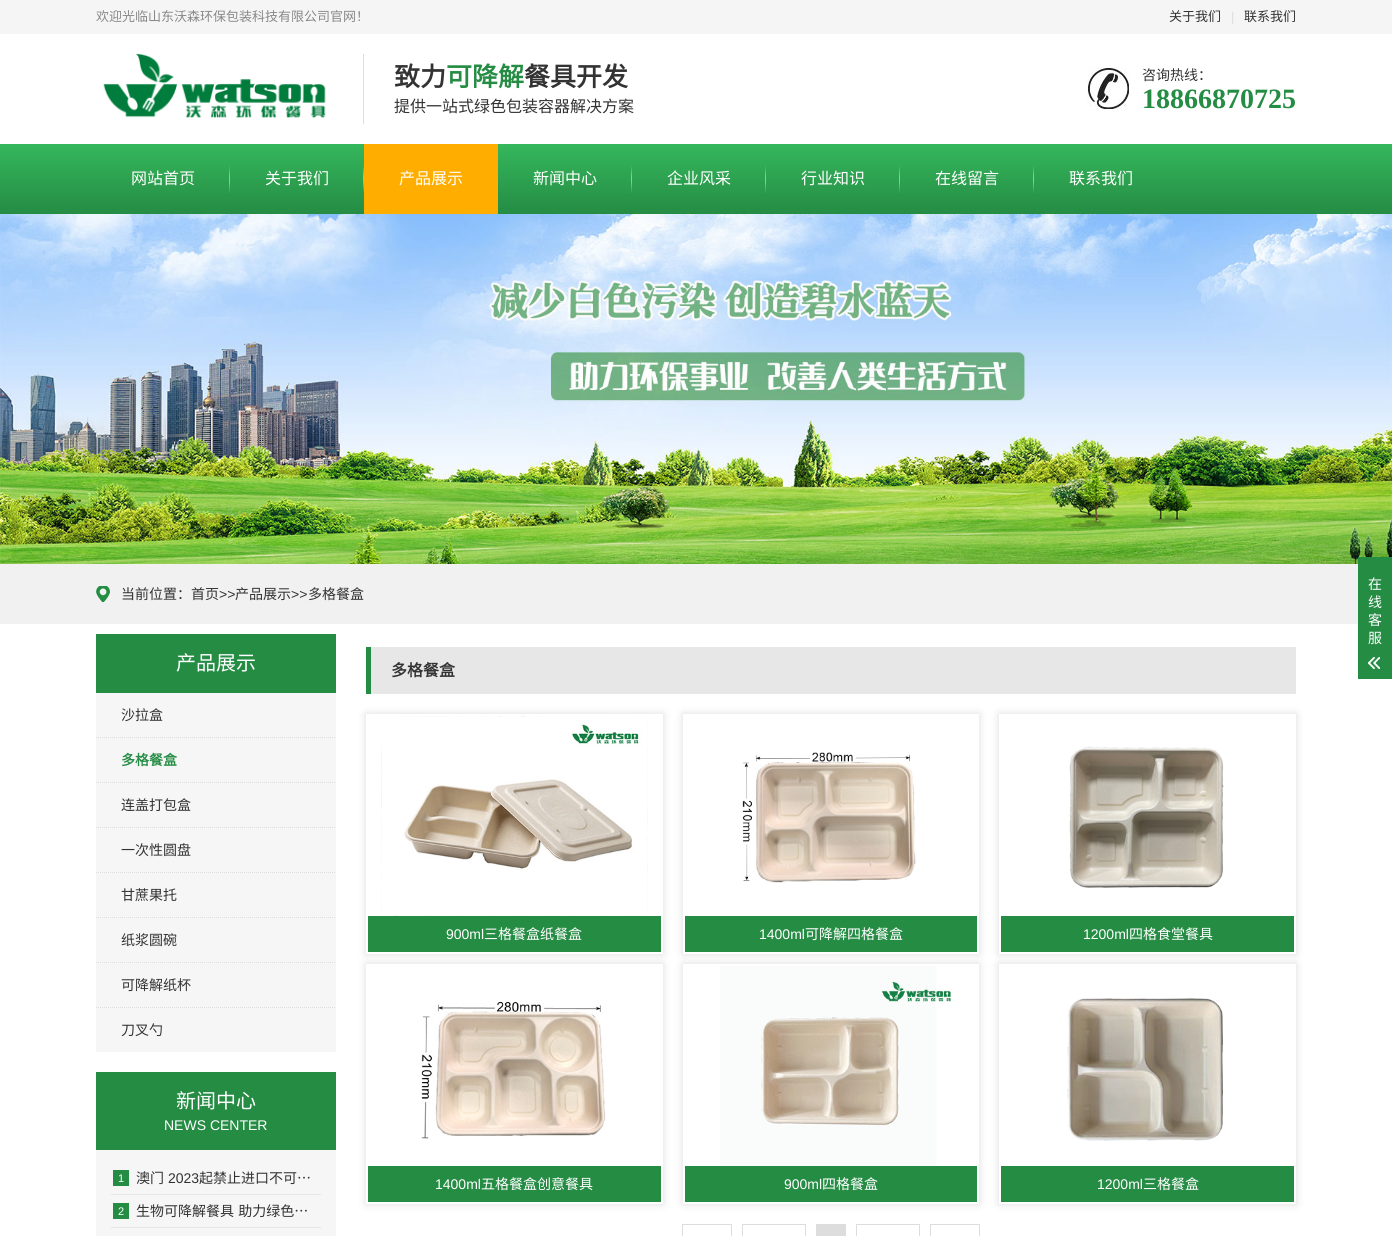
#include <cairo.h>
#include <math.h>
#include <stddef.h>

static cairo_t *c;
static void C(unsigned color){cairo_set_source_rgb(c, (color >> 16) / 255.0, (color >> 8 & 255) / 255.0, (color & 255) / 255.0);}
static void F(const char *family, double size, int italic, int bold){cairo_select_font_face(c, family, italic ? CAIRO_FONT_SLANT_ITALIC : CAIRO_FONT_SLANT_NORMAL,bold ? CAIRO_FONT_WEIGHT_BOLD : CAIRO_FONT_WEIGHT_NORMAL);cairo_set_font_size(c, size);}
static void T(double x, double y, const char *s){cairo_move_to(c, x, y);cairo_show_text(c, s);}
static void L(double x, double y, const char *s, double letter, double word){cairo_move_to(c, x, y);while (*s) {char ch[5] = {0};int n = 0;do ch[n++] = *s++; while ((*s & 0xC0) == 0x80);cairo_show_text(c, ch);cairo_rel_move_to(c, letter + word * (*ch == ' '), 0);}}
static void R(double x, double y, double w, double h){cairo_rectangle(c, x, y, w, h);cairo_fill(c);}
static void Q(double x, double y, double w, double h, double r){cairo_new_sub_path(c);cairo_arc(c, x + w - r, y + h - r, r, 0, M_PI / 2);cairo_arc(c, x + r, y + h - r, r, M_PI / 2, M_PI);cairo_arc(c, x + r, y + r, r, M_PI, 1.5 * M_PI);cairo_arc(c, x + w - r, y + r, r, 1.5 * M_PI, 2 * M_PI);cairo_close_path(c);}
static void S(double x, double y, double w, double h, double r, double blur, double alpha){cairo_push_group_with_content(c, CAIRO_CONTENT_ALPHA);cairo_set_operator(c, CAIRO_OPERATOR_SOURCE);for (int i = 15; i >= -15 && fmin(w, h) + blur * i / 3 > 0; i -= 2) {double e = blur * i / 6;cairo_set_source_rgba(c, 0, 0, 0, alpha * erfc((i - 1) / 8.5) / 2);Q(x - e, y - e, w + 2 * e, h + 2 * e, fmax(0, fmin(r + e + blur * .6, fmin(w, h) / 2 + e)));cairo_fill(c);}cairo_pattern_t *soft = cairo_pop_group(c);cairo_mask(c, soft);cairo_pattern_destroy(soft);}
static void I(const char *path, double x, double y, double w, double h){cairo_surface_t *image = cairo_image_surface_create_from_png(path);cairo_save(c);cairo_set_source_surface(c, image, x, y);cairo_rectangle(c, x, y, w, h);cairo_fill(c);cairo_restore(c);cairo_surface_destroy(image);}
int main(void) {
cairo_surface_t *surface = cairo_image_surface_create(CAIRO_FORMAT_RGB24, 1392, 1236);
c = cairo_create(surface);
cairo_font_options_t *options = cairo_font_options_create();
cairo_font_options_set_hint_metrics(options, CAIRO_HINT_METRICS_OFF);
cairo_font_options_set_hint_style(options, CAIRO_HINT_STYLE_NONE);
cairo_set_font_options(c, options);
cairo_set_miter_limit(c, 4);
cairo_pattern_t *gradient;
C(0xffffff);
cairo_paint(c);
C(0xf5f5f5);
R(0,0,1392,34);
F("Noto Sans CJK SC",13,0,0);
C(0x888888);
T(96,21,"欢迎光临山东沃森环保包装科技有限公司官网！");
C(0x333333);
T(1169,21,"关于我们");
F("Liberation Sans",13,0,0);
C(0xdddddd);
T(1231,21,"|");
F("Noto Sans CJK SC",13,0,0);
C(0x333333);
T(1244,21,"联系我们");
I("1.png",103,53,223,65);
C(0xdddddd);
R(363,54,1,70);
F("Noto Sans CJK SC",26,0,1);
C(0x333333);
T(394,86,"致力");
C(0x258c44);
T(446,86,"可降解");
C(0x333333);
T(524,86,"餐具开发");
F("Noto Sans CJK SC",16,0,0);
T(394,112,"提供一站式绿色包装容器解决方案");
I("2.png",1087,67,44,44);
F("Noto Sans CJK SC",14,0,0);
T(1142,80,"咨询热线：");
F("Liberation Serif",28,0,1);
C(0x258c44);
T(1142,108,"18866870725");
gradient = cairo_pattern_create_linear(696,214,696,144);
cairo_pattern_add_color_stop_rgba(gradient,0,0.145,0.549,0.267,1);
cairo_pattern_add_color_stop_rgba(gradient,1,0.208,0.718,0.361,1);
cairo_set_source(c,gradient);
cairo_pattern_destroy(gradient);
R(0,144,1392,70);
I("3.png",229,166,1,27);
F("Noto Sans CJK SC",16,0,0);
C(0xffffff);
T(131,184,"网站首页");
I("3.png",363,166,1,27);
T(265,184,"关于我们");
C(0xffae00);
R(364,144,134,70);
C(0xffffff);
T(399,184,"产品展示");
I("3.png",631,166,1,27);
T(533,184,"新闻中心");
I("3.png",765,166,1,27);
T(667,184,"企业风采");
I("3.png",899,166,1,27);
T(801,184,"行业知识");
I("3.png",1033,166,1,27);
T(935,184,"在线留言");
T(1069,184,"联系我们");
I("4.png",0,214,1392,350);
C(0x258c44);
R(1358,557,34,122);
F("Noto Sans CJK SC",14,0,0);
C(0xffffff);
T(1368,589,"在");
T(1368,607,"线");
T(1368,625,"客");
T(1368,643,"服");
I("5.png",1368,657,12,12);
C(0xf6f6f6);
R(96,693,240,359);
C(0x258c44);
R(96,634,240,59);
F("Noto Sans CJK SC",20,0,0);
C(0xffffff);
T(176,670,"产品展示");
cairo_new_path(c);
cairo_move_to(c,96,737.5);
cairo_line_to(c,336,737.5);
C(0xdddddd);
cairo_set_line_width(c,1);
cairo_set_dash(c,(double[]){1,1},2,0);
cairo_stroke(c);
F("Noto Sans CJK SC",14,0,0);
C(0x333333);
T(121,720,"沙拉盒");
cairo_new_path(c);
cairo_move_to(c,96,782.5);
cairo_line_to(c,336,782.5);
C(0xdddddd);
cairo_stroke(c);
F("Noto Sans CJK SC",14,0,1);
C(0x258c44);
T(121,765,"多格餐盒");
cairo_new_path(c);
cairo_move_to(c,96,827.5);
cairo_line_to(c,336,827.5);
C(0xdddddd);
cairo_stroke(c);
F("Noto Sans CJK SC",14,0,0);
C(0x333333);
T(121,810,"连盖打包盒");
cairo_new_path(c);
cairo_move_to(c,96,872.5);
cairo_line_to(c,336,872.5);
C(0xdddddd);
cairo_stroke(c);
C(0x333333);
T(121,855,"一次性圆盘");
cairo_new_path(c);
cairo_move_to(c,96,917.5);
cairo_line_to(c,336,917.5);
C(0xdddddd);
cairo_stroke(c);
C(0x333333);
T(121,900,"甘蔗果托");
cairo_new_path(c);
cairo_move_to(c,96,962.5);
cairo_line_to(c,336,962.5);
C(0xdddddd);
cairo_stroke(c);
C(0x333333);
T(121,945,"纸浆圆碗");
cairo_new_path(c);
cairo_move_to(c,96,1007.5);
cairo_line_to(c,336,1007.5);
C(0xdddddd);
cairo_stroke(c);
C(0x333333);
T(121,990,"可降解纸杯");
T(121,1035,"刀叉勺");
C(0xf6f6f6);
R(96,1150,240,86);
C(0x258c44);
R(96,1072,240,78);
F("Noto Sans CJK SC",20,0,0);
C(0xffffff);
T(176,1108,"新闻中心");
F("Liberation Sans",14,0,0);
T(164,1130,"NEWS CENTER");
C(0xe6e6e6);
R(111,1194,210,1);
C(0x258c44);
R(113,1170,16,16);
F("Liberation Sans",11,0,0);
C(0xffffff);
T(118,1182,"1");
F("Noto Sans CJK SC",14,0,0);
C(0x333333);
T(136,1183,"澳门");
F("Liberation Sans",14,0,0);
T(168,1183,"2023");
F("Noto Sans CJK SC",14,0,0);
T(199,1183,"起禁止进口不可…");
C(0xe6e6e6);
R(111,1227,210,1);
C(0x258c44);
R(113,1203,16,16);
F("Liberation Sans",11,0,0);
C(0xffffff);
T(118,1215,"2");
F("Noto Sans CJK SC",14,0,0);
C(0x333333);
L(136,1216,"生物可降解餐具 助力绿色…",0,1);
C(0xe7e7e7);
R(371,647,925,47);
C(0x258c44);
R(366,647,5,47);
F("Noto Sans CJK SC",16,0,1);
C(0x333333);
T(391,676,"多格餐盒");
cairo_save(c);
cairo_set_fill_rule(c,CAIRO_FILL_RULE_EVEN_ODD);
cairo_new_path(c);
cairo_move_to(c,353,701);
cairo_line_to(c,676,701);
cairo_line_to(c,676,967);
cairo_line_to(c,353,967);
cairo_close_path(c);
cairo_move_to(c,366,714);
cairo_line_to(c,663,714);
cairo_line_to(c,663,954);
cairo_line_to(c,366,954);
cairo_close_path(c);
cairo_clip(c);
C(0xdbdbdb);
S(366,714,297,240,0,4,1);
cairo_restore(c);
I("6.png",381,716,267,200);
cairo_save(c);
cairo_set_fill_rule(c,CAIRO_FILL_RULE_EVEN_ODD);
cairo_new_path(c);
cairo_move_to(c,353,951);
cairo_line_to(c,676,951);
cairo_line_to(c,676,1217);
cairo_line_to(c,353,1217);
cairo_close_path(c);
cairo_move_to(c,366,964);
cairo_line_to(c,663,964);
cairo_line_to(c,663,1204);
cairo_line_to(c,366,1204);
cairo_close_path(c);
cairo_clip(c);
C(0xdbdbdb);
S(366,964,297,240,0,4,1);
cairo_restore(c);
C(0x258c44);
R(368,916,293,36);
F("Liberation Sans",14,0,0);
C(0xffffff);
T(446,939,"900ml");
F("Noto Sans CJK SC",14,0,0);
T(484,939,"三格餐盒纸餐盒");
cairo_save(c);
cairo_set_fill_rule(c,CAIRO_FILL_RULE_EVEN_ODD);
cairo_new_path(c);
cairo_move_to(c,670,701);
cairo_line_to(c,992,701);
cairo_line_to(c,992,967);
cairo_line_to(c,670,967);
cairo_close_path(c);
cairo_move_to(c,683,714);
cairo_line_to(c,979,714);
cairo_line_to(c,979,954);
cairo_line_to(c,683,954);
cairo_close_path(c);
cairo_clip(c);
C(0xdbdbdb);
S(683,714,296,240,0,4,1);
cairo_restore(c);
I("7.png",742,752,174,131);
cairo_save(c);
cairo_set_fill_rule(c,CAIRO_FILL_RULE_EVEN_ODD);
cairo_new_path(c);
cairo_move_to(c,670,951);
cairo_line_to(c,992,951);
cairo_line_to(c,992,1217);
cairo_line_to(c,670,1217);
cairo_close_path(c);
cairo_move_to(c,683,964);
cairo_line_to(c,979,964);
cairo_line_to(c,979,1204);
cairo_line_to(c,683,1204);
cairo_close_path(c);
cairo_clip(c);
C(0xdbdbdb);
S(683,964,296,240,0,4,1);
cairo_restore(c);
C(0x258c44);
R(685,916,292,36);
F("Liberation Sans",14,0,0);
C(0xffffff);
T(759,939,"1400ml");
F("Noto Sans CJK SC",14,0,0);
T(805,939,"可降解四格餐盒");
cairo_save(c);
cairo_set_fill_rule(c,CAIRO_FILL_RULE_EVEN_ODD);
cairo_new_path(c);
cairo_move_to(c,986,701);
cairo_line_to(c,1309,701);
cairo_line_to(c,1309,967);
cairo_line_to(c,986,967);
cairo_close_path(c);
cairo_move_to(c,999,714);
cairo_line_to(c,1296,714);
cairo_line_to(c,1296,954);
cairo_line_to(c,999,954);
cairo_close_path(c);
cairo_clip(c);
C(0xdbdbdb);
S(999,714,297,240,0,4,1);
cairo_restore(c);
I("8.png",1069,746,155,142);
cairo_save(c);
cairo_set_fill_rule(c,CAIRO_FILL_RULE_EVEN_ODD);
cairo_new_path(c);
cairo_move_to(c,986,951);
cairo_line_to(c,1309,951);
cairo_line_to(c,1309,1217);
cairo_line_to(c,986,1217);
cairo_close_path(c);
cairo_move_to(c,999,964);
cairo_line_to(c,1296,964);
cairo_line_to(c,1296,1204);
cairo_line_to(c,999,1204);
cairo_close_path(c);
cairo_clip(c);
C(0xdbdbdb);
S(999,964,297,240,0,4,1);
cairo_restore(c);
C(0x258c44);
R(1001,916,293,36);
F("Liberation Sans",14,0,0);
C(0xffffff);
T(1083,939,"1200ml");
F("Noto Sans CJK SC",14,0,0);
T(1129,939,"四格食堂餐具");
I("9.png",421,1001,185,138);
C(0x258c44);
R(368,1166,293,36);
F("Liberation Sans",14,0,0);
C(0xffffff);
T(435,1189,"1400ml");
F("Noto Sans CJK SC",14,0,0);
T(481,1189,"五格餐盒创意餐具");
I("10.png",720,966,231,200);
C(0x258c44);
R(685,1166,292,36);
F("Liberation Sans",14,0,0);
C(0xffffff);
T(784,1189,"900ml");
F("Noto Sans CJK SC",14,0,0);
T(822,1189,"四格餐盒");
I("11.png",1067,998,156,143);
C(0x258c44);
R(1001,1166,293,36);
F("Liberation Sans",14,0,0);
C(0xffffff);
T(1097,1189,"1200ml");
F("Noto Sans CJK SC",14,0,0);
T(1143,1189,"三格餐盒");
cairo_rectangle(c,682.5,1224.5,49,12);
C(0xdddddd);
cairo_set_dash(c,NULL,0,0);
cairo_stroke(c);
cairo_rectangle(c,742.5,1224.5,63,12);
cairo_stroke(c);
R(816,1224,30,12);
cairo_rectangle(c,856.5,1224.5,63,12);
cairo_stroke(c);
cairo_rectangle(c,930.5,1224.5,49,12);
cairo_stroke(c);
C(0xf1f1f1);
R(0,564,1358,60);
I("12.png",96,586,14,16);
C(0x333333);
T(121,599,"当前位置：首页");
F("Liberation Sans",14,0,0);
T(219,599,">>");
F("Noto Sans CJK SC",14,0,0);
T(235,599,"产品展示");
F("Liberation Sans",14,0,0);
T(291,599,">>");
F("Noto Sans CJK SC",14,0,0);
T(308,599,"多格餐盒");
cairo_surface_write_to_png(surface, "o.png");
cairo_font_options_destroy(options);
cairo_destroy(c);
cairo_surface_destroy(surface);
return 0;
}
